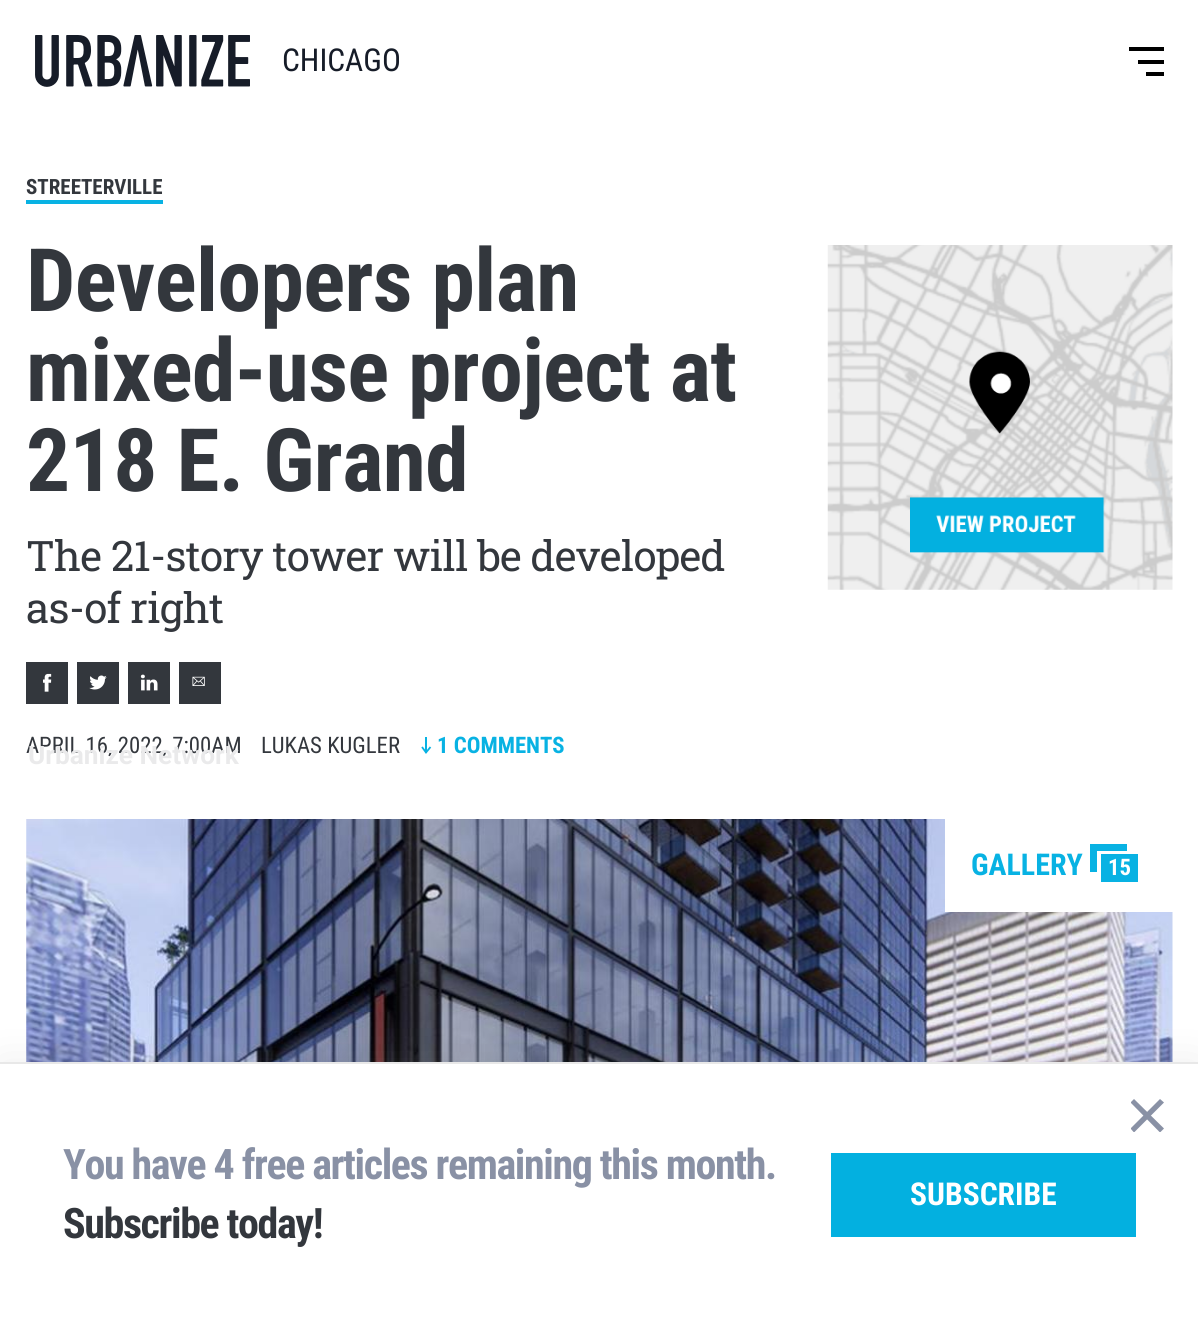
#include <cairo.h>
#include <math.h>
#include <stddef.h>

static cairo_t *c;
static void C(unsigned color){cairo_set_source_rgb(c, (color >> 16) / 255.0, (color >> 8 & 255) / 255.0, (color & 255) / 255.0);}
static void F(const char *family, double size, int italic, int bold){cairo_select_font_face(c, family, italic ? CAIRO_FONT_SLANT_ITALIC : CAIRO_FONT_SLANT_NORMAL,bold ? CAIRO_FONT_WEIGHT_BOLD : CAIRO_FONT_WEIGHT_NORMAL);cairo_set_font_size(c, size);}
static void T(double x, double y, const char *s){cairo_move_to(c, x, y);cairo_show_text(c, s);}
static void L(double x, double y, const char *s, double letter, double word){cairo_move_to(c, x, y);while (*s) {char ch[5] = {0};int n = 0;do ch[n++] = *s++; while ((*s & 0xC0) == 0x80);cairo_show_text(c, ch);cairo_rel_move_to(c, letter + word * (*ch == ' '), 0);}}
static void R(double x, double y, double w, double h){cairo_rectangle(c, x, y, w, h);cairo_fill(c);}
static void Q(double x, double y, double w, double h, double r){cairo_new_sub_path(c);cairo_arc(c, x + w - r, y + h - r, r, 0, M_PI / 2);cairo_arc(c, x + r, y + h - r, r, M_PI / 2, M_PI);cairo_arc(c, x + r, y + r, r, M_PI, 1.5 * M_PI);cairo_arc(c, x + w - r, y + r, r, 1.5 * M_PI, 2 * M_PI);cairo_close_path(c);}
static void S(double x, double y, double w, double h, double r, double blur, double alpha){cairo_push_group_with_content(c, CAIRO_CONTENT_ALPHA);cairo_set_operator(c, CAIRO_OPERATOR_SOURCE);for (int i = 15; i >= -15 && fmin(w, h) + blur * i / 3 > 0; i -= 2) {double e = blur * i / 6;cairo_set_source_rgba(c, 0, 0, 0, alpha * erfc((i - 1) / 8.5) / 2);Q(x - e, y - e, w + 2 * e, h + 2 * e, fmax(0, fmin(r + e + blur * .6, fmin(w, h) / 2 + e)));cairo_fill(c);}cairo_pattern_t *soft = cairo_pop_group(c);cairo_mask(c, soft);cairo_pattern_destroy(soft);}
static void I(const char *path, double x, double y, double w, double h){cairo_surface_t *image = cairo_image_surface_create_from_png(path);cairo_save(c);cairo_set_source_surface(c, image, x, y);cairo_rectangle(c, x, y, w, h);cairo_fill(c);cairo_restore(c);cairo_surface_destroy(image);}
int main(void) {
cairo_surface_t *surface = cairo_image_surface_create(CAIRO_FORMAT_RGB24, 1198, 1324);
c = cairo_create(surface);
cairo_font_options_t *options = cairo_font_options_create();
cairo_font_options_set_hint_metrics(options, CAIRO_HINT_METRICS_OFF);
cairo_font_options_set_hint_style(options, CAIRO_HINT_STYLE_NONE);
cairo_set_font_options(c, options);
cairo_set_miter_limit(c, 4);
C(0xffffff);
cairo_paint(c);
I("1.png",35,35,215,52);
F("Roboto Condensed",31.5,0,0);
C(0x161c28);
T(282,71,"CHICAGO");
C(0x000000);
R(1129,47,35,4);
R(1138,60,26,4);
R(1146,72,18,4);
F("Roboto Condensed",22.75,0,0);
C(0x33373d);
T(26,753,"APRIL 16, 2022, 7:00AM");
cairo_save(c);
cairo_rectangle(c,0,746,560,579);
cairo_clip(c);
F("Roboto",26.25,0,1);
C(0xeaeaeb);
T(28,764,"Urbanize Network");
cairo_restore(c);
F("Roboto Condensed",21,0,1);
T(26,194,"STREETERVILLE");
C(0x08b2e3);
R(26,200,137,4);
F("Roboto Condensed",87.5,0,1);
C(0x33373d);
L(26,311,"Developers plan",-.6,0);
L(26,401,"mixed-use project at",-.6,0);
L(26,491,"218 E. Grand",-.6,0);
F("Roboto Slab",42,0,0);
L(26,571,"The 21-story tower will be developed",-.75,0);
L(26,623,"as-of right",-.75,0);
I("2.png",827,245,346,345);
R(26,662,42,42);
I("3.png",43,673,9,19);
R(77,662,42,42);
I("4.png",89,675,18,15);
R(128,662,42,42);
I("5.png",140,674,18,17);
R(179,662,42,42);
I("6.png",192,676,13,10);
F("Roboto Condensed",22.75,0,0);
T(261,753,"LUKAS KUGLER");
C(0x08b2e3);
R(425,737,2,16);
cairo_new_path(c);
cairo_move_to(c,422,747);
cairo_line_to(c,426,752.5);
cairo_line_to(c,430.5,747);
cairo_set_line_width(c,1.8);
cairo_stroke(c);
F("Roboto Condensed",22.75,0,1);
T(437,753,"1 COMMENTS");
I("7.png",26,819,1147,243);
C(0xffffff);
R(945,819,228,93);
F("Roboto Condensed",30,0,1);
C(0x08b2e3);
T(971,875,"GALLERY");
R(1090,844,37,28);
R(1101,854,37,28);
C(0xffffff);
R(1097,851,30,3);
R(1097,851,4,21);
F("Roboto Condensed",22.75,0,1);
T(1108,875,"15");
C(0x999999);
S(0,1062,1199,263,0,22,.15);
C(0xffffff);
R(0,1064,1198,260);
C(0xe8e8e8);
R(0,1062,1198,2);
cairo_save(c);
cairo_rectangle(c,1131,1099,33,33);
cairo_clip(c);
C(0x8991a5);
cairo_new_path(c);
cairo_move_to(c,1164,1102.5);
cairo_line_to(c,1134,1132.5);
cairo_line_to(c,1130.5,1128.5);
cairo_line_to(c,1160,1099);
cairo_close_path(c);
cairo_fill(c);
cairo_new_path(c);
cairo_move_to(c,1160,1132.5);
cairo_line_to(c,1130.5,1102.5);
cairo_line_to(c,1134,1099);
cairo_line_to(c,1164,1128.5);
cairo_close_path(c);
cairo_fill(c);
cairo_restore(c);
F("Roboto Condensed",42,0,1);
C(0x8991a5);
L(63,1179,"You have 4 free articles remaining this month.",-1.4,0);
C(0x33373d);
L(63,1238,"Subscribe today!",-1.4,0);
C(0x03b0e0);
R(831,1153,305,84);
F("Roboto Condensed",31.5,0,1);
C(0xffffff);
T(910,1205,"SUBSCRIBE");
cairo_surface_write_to_png(surface, "o.png");
cairo_font_options_destroy(options);
cairo_destroy(c);
cairo_surface_destroy(surface);
return 0;
}
